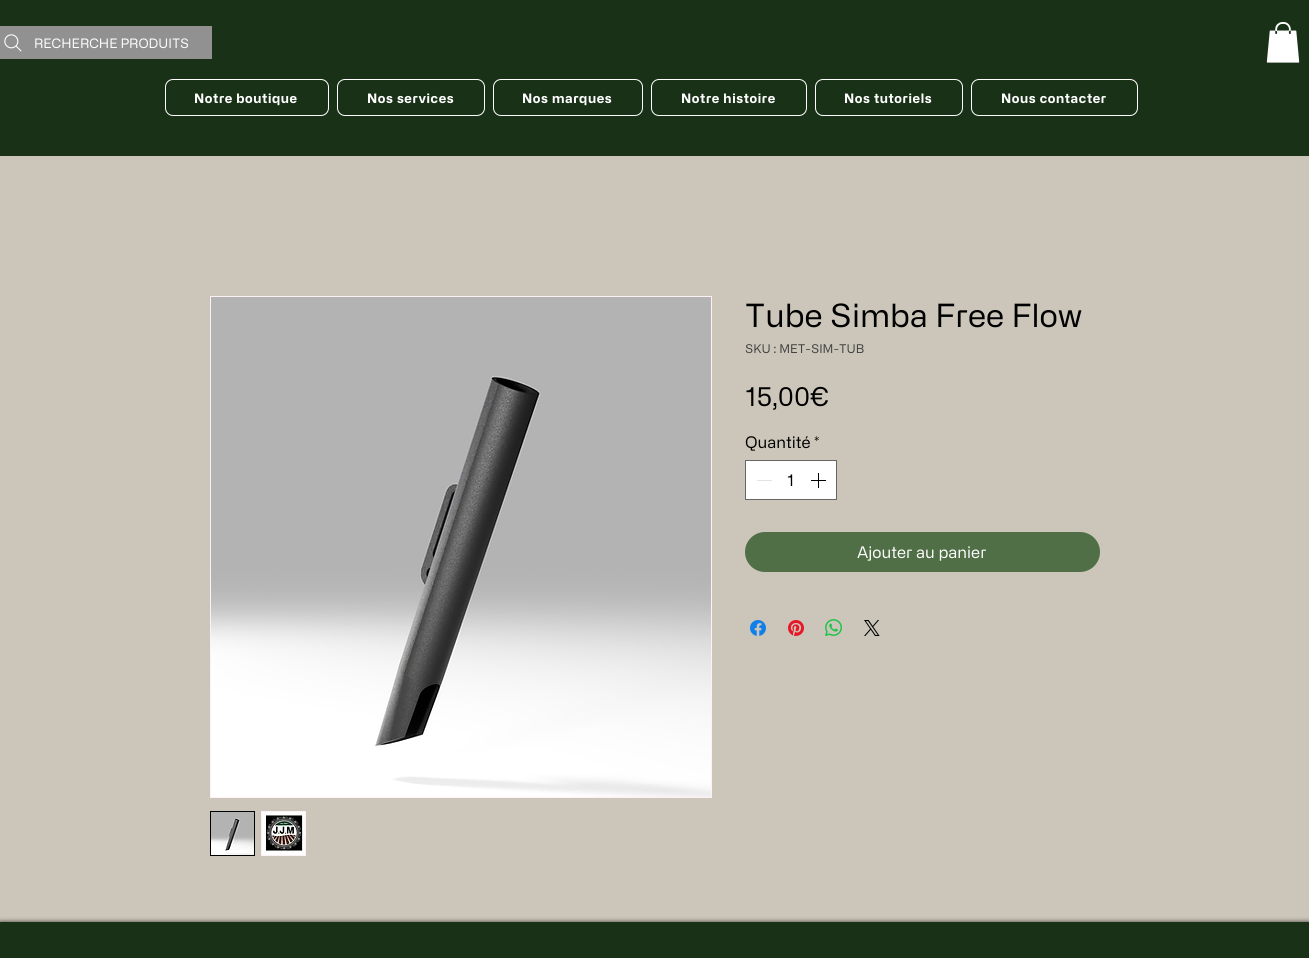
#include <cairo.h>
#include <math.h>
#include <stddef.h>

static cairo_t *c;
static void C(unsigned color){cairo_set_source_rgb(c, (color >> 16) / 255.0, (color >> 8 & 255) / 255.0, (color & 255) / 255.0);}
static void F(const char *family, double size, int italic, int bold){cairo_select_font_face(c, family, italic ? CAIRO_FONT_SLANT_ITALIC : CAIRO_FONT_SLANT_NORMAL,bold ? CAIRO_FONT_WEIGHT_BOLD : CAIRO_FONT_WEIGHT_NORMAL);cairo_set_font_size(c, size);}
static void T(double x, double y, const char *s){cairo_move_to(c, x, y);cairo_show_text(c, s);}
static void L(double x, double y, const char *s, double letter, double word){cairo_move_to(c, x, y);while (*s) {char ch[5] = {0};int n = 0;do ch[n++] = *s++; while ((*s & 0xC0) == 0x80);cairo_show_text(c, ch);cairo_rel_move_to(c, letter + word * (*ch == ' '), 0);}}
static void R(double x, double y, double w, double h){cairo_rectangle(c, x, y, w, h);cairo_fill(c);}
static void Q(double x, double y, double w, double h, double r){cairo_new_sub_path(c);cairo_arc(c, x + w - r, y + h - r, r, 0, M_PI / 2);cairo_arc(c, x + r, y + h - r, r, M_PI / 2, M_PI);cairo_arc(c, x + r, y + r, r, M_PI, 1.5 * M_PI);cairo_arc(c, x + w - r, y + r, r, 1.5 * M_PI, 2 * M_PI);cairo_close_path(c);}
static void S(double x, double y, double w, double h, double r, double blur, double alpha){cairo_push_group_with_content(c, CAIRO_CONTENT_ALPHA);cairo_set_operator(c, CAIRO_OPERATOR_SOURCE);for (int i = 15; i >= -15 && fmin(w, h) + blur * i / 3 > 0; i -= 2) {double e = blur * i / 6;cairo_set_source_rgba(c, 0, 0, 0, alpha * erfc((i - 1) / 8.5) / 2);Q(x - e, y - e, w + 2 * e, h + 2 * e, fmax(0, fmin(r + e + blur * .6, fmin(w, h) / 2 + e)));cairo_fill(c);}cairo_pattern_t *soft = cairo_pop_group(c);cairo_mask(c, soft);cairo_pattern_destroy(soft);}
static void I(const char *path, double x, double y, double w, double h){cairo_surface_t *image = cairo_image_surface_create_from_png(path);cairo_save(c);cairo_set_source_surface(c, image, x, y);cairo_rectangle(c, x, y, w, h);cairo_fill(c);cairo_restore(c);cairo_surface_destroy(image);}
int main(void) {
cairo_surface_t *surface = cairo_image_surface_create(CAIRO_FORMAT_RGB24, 1309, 958);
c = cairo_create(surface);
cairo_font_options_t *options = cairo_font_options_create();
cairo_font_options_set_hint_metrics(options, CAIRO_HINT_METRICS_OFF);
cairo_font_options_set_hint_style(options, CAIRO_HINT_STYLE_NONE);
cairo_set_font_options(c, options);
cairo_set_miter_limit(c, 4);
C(0xcbc6b9);
cairo_paint(c);
C(0x193117);
R(0,0,1309,156);
C(0x919191);
R(0,26,212,33);
I("1.png",4,34,18,18);
F("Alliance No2",13,0,0);
C(0xffffff);
T(34,48,"RECHERCHE PRODUITS");
I("2.png",1266,22,34,41);
Q(165.5,79.5,163,36,7.5);
cairo_set_line_width(c,1);
cairo_stroke(c);
F("Alliance No2",13,0,1);
L(194,103,"Notre boutique",.6,0);
Q(337.5,79.5,147,36,7.5);
cairo_stroke(c);
L(367,103,"Nos services",.6,0);
Q(493.5,79.5,149,36,7.5);
cairo_stroke(c);
L(522,103,"Nos marques",.6,0);
Q(651.5,79.5,155,36,7.5);
cairo_stroke(c);
L(681,103,"Notre histoire",.6,0);
Q(815.5,79.5,147,36,7.5);
cairo_stroke(c);
L(844,103,"Nos tutoriels",.6,0);
Q(971.5,79.5,166,36,7.5);
cairo_stroke(c);
L(1001,103,"Nous contacter",.6,0);
cairo_rectangle(c,210.5,296.5,501,501);
C(0xfff0f5);
cairo_stroke(c);
I("3.png",211,297,500,500);
cairo_rectangle(c,210.5,811.5,44,44);
C(0x000000);
cairo_stroke(c);
I("4.png",211,812,43,43);
C(0xfff0f5);
R(261,811,45,45);
I("5.png",262,812,43,43);
F("Alliance No2",32,0,0);
C(0x000000);
T(745,327,"Tube Simba Free Flow");
F("Alliance No2",12,0,0);
C(0x404040);
T(745,353,"SKU : MET-SIM-TUB");
F("Alliance No2",26,0,0);
C(0x000000);
T(745,406,"15,00€");
F("Alliance No2",16,0,0);
T(745,448,"Quantité");
T(814,448,"*");
C(0xffffff);
cairo_rectangle(c,745.5,460.5,91,39);
cairo_fill_preserve(c);
C(0x666666);
cairo_stroke(c);
C(0xe3e3e3);
R(757,480,15,1);
C(0x000000);
T(787,486,"1");
I("6.png",811,473,15,15);
C(0x506f46);
Q(745,532,355,40,20);
cairo_fill(c);
C(0xffffff);
T(857,558,"Ajouter au panier");
I("7.png",750,620,16,16);
I("8.png",788,620,16,16);
I("9.png",825,619,17,17);
I("10.png",864,620,16,16);
C(0x000000);
S(0,922,1309,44,0,2.5,.7);
C(0x193117);
R(0,922,1309,36);
cairo_surface_write_to_png(surface, "o.png");
cairo_font_options_destroy(options);
cairo_destroy(c);
cairo_surface_destroy(surface);
return 0;
}
